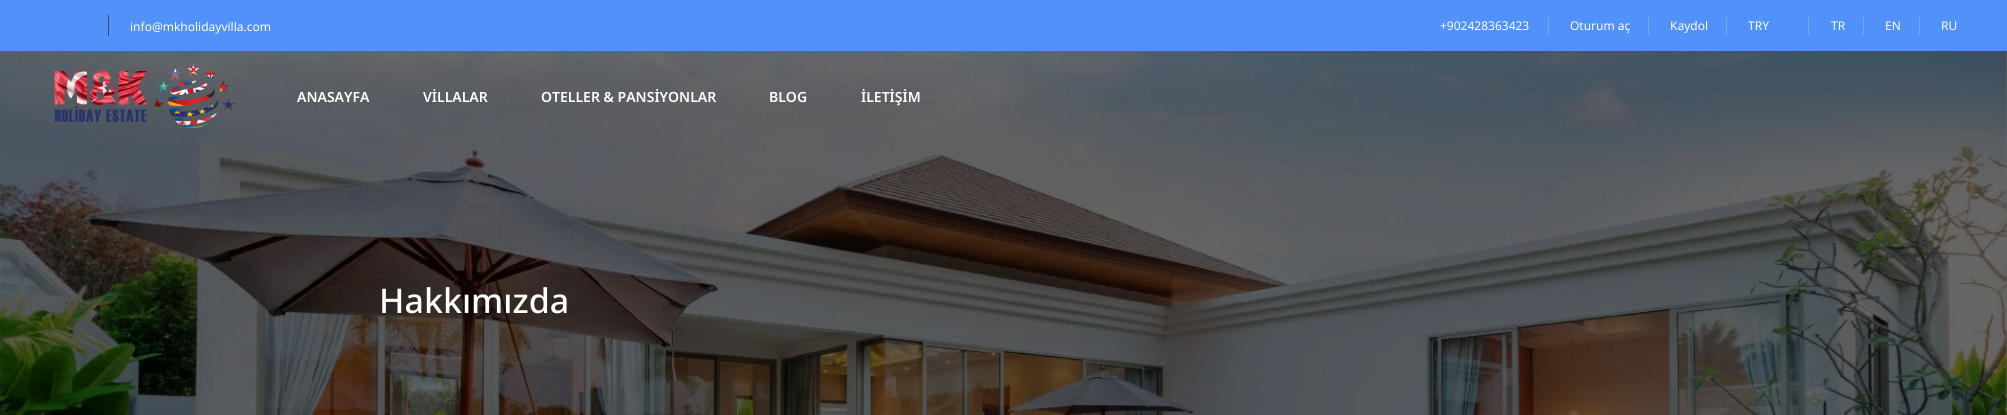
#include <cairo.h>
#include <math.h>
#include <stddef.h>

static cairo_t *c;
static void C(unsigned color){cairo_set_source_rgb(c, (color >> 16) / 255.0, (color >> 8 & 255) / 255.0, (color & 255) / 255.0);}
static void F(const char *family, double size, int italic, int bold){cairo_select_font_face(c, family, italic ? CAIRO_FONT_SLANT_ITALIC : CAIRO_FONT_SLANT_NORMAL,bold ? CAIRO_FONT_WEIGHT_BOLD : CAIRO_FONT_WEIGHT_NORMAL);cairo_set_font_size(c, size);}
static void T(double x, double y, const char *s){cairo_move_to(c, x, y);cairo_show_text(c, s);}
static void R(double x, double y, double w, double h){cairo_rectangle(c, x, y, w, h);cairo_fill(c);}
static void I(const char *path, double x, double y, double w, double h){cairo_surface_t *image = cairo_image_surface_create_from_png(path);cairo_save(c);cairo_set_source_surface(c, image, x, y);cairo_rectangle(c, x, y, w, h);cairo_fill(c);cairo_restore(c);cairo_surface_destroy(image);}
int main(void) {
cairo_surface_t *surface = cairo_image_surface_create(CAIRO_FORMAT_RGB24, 2007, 415);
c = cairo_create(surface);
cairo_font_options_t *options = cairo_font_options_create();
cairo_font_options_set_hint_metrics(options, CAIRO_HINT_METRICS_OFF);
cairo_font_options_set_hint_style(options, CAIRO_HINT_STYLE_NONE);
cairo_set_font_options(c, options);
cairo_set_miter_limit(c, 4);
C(0xffffff);
cairo_paint(c);
C(0x5191fa);
R(0,0,2007,51);
C(0x374969);
R(108,15,1,21);
F("Noto Sans",12,0,0);
C(0xffffff);
T(130,31,"info@mkholidayvilla.com");
C(0x74a7fb);
R(1548,17,1,18);
C(0xffffff);
T(1440,30,"+902428363423");
C(0x74a7fb);
R(1648,17,1,18);
C(0xffffff);
T(1570,30,"Oturum aç");
C(0x74a7fb);
R(1726,17,1,18);
C(0xffffff);
T(1670,30,"Kaydol");
C(0x74a7fb);
R(1808,17,1,18);
C(0xffffff);
T(1748,30,"TRY");
C(0x74a7fb);
R(1863,17,1,18);
C(0xffffff);
T(1831,30,"TR");
C(0x74a7fb);
R(1919,17,1,18);
C(0xffffff);
T(1885,30,"EN");
T(1941,30,"RU");
I("2.png",0,51,2007,364);
I("1.png",54,64,181,65);
F("Noto Sans SemiBold",14,0,0);
T(297,102,"ANASAYFA");
T(423,102,"VİLLALAR");
T(541,102,"OTELLER & PANSİYONLAR");
T(769,102,"BLOG");
T(861,102,"İLETİŞİM");
F("Noto Sans Medium",34,0,0);
T(379,313,"Hakkımızda");
cairo_surface_write_to_png(surface, "o.png");
cairo_font_options_destroy(options);
cairo_destroy(c);
cairo_surface_destroy(surface);
return 0;
}
